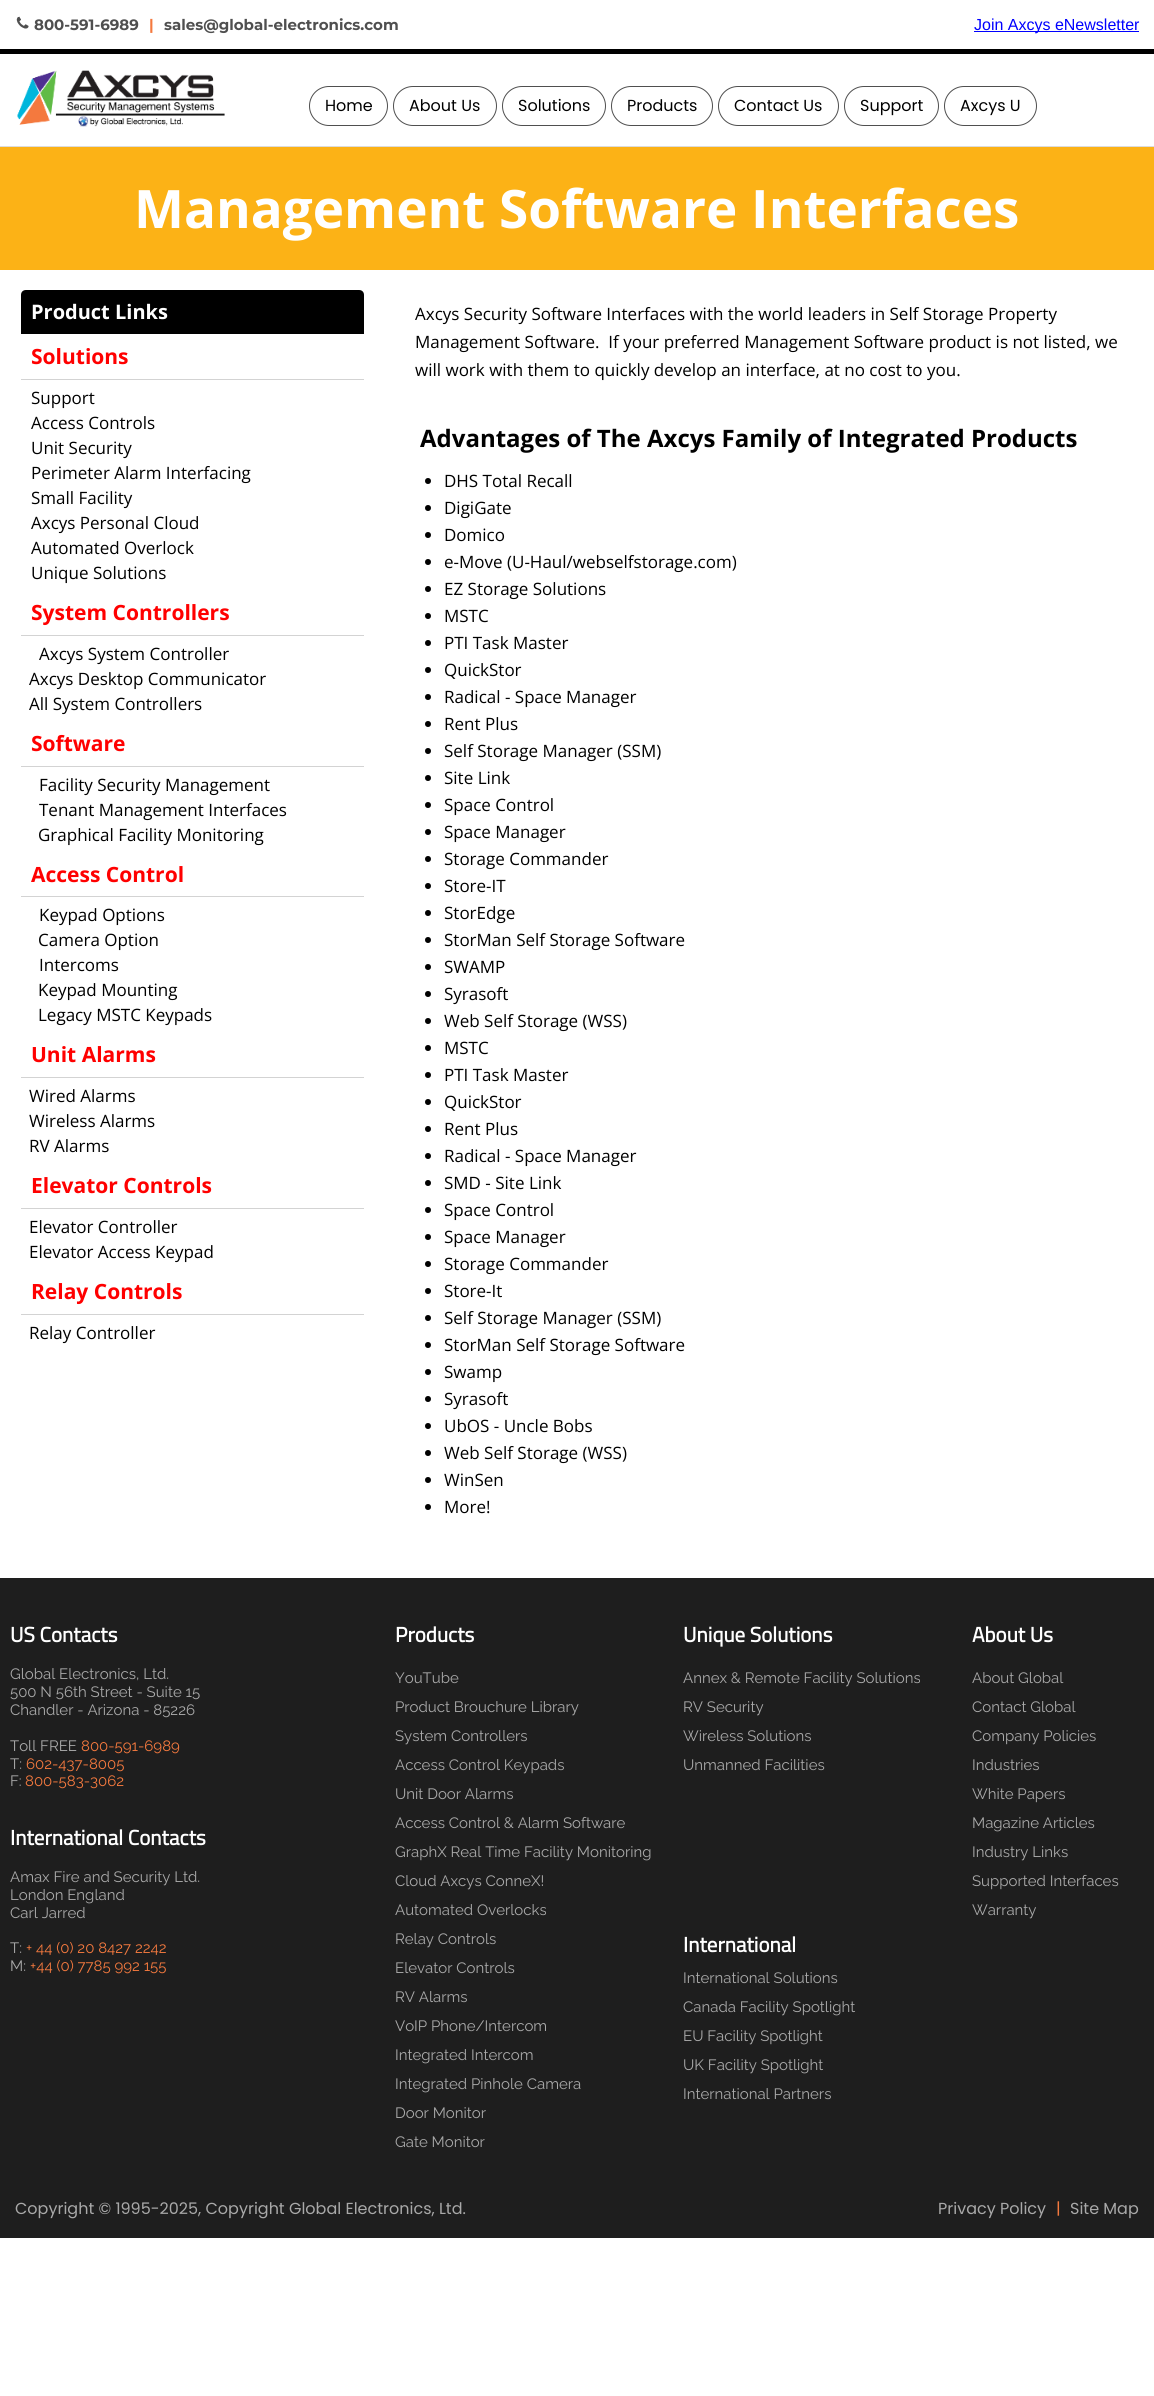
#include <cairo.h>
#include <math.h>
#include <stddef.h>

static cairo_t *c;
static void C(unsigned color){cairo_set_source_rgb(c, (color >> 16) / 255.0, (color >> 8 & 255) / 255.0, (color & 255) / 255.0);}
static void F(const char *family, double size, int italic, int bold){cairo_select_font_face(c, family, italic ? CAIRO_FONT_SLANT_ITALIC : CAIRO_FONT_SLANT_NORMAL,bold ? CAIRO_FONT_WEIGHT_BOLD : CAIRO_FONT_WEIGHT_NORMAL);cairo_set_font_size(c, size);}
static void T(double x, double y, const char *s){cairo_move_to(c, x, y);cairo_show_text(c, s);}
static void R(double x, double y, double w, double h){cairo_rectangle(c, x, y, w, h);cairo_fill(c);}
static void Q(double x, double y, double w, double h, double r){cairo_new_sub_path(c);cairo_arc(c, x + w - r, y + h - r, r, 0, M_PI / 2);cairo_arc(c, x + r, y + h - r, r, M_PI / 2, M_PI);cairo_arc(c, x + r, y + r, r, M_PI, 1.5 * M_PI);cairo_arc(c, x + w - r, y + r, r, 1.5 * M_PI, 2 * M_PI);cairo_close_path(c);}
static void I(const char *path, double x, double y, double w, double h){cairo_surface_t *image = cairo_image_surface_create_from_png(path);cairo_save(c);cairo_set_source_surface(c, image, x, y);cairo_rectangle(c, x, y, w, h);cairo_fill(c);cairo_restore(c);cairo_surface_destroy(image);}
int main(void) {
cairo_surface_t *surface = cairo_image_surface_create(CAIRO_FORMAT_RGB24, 1154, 2396);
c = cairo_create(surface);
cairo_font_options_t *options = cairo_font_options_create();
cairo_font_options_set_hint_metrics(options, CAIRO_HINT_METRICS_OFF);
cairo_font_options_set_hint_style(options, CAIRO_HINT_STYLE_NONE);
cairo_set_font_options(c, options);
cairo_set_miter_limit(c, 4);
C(0xffffff);
cairo_paint(c);
C(0x000000);
R(0,49,1154,5);
I("1.png",16,16,13,13);
F("Montserrat",15,0,1);
C(0x4f4f4f);
T(34,30,"800-591-6989");
C(0xf4793e);
T(149,30,"|");
C(0x4f4f4f);
T(164,30,"sales@global-electronics.com");
C(0x0000ff);
R(974,31,165,1);
F("Liberation Sans",16,0,0);
T(974,30,"Join Axcys eNewsletter");
C(0xdcdcdc);
R(0,146,1154,1);
I("2.png",17,70,208,57);
Q(309.5,86.5,78,39,19.5);
C(0x4f4f4f);
cairo_set_line_width(c,1);
cairo_stroke(c);
F("Poppins",16,0,0);
C(0x000000);
T(325,111,"Home");
Q(393.5,86.5,103,39,19.5);
C(0x4f4f4f);
cairo_stroke(c);
C(0x000000);
T(409,111,"About Us");
Q(502.5,86.5,103,39,19.5);
C(0x4f4f4f);
cairo_stroke(c);
C(0x000000);
T(518,111,"Solutions");
Q(611.5,86.5,101,39,19.5);
C(0x4f4f4f);
cairo_stroke(c);
C(0x000000);
T(627,111,"Products");
Q(718.5,86.5,120,39,19.5);
C(0x4f4f4f);
cairo_stroke(c);
C(0x000000);
T(734,111,"Contact Us");
Q(844.5,86.5,94,39,19.5);
C(0x4f4f4f);
cairo_stroke(c);
C(0x000000);
T(860,111,"Support");
Q(944.5,86.5,92,39,19.5);
C(0x4f4f4f);
cairo_stroke(c);
C(0x000000);
T(960,111,"Axcys U");
C(0xfcb216);
R(0,147,1154,123);
F("Open Sans",53,0,1);
C(0xffffff);
T(134,228,"Management Software Interfaces");
C(0x000000);
cairo_new_path(c);
cairo_move_to(c,26,290);
cairo_line_to(c,359,290);
cairo_curve_to(c,362,290,364,292,364,295);
cairo_line_to(c,364,334);
cairo_line_to(c,21,334);
cairo_line_to(c,21,295);
cairo_curve_to(c,21,292,23,290,26,290);
cairo_close_path(c);
cairo_fill(c);
F("Open Sans",20,0,1);
C(0xffffff);
T(31,319,"Product Links");
C(0xd3d3d3);
R(21,379,343,1);
F("Open Sans",21,0,1);
C(0xff0000);
T(31,364,"Solutions");
F("Open Sans",17,0,0);
C(0x000000);
T(31,404,"Support");
T(31,429,"Access Controls");
T(31,454,"Unit Security");
T(31,479,"Perimeter Alarm Interfacing");
T(31,504,"Small Facility");
T(31,529,"Axcys Personal Cloud");
T(31,554,"Automated Overlock");
T(31,579,"Unique Solutions");
C(0xd3d3d3);
R(21,635,343,1);
F("Open Sans",21,0,1);
C(0xff0000);
T(31,620,"System Controllers");
F("Open Sans",17,0,0);
C(0x000000);
T(39,660,"Axcys System Controller");
T(29,685,"Axcys Desktop Communicator");
T(29,710,"All System Controllers");
C(0xd3d3d3);
R(21,766,343,1);
F("Open Sans",21,0,1);
C(0xff0000);
T(31,751,"Software");
F("Open Sans",17,0,0);
C(0x000000);
T(39,791,"Facility Security Management");
T(39,816,"Tenant Management Interfaces");
T(38,841,"Graphical Facility Monitoring");
C(0xd3d3d3);
R(21,896,343,1);
F("Open Sans",21,0,1);
C(0xff0000);
T(31,882,"Access Control");
F("Open Sans",17,0,0);
C(0x000000);
T(39,921,"Keypad Options");
T(38,946,"Camera Option");
T(39,971,"Intercoms");
T(38,996,"Keypad Mounting");
T(38,1021,"Legacy MSTC Keypads");
C(0xd3d3d3);
R(21,1077,343,1);
F("Open Sans",21,0,1);
C(0xff0000);
T(31,1062,"Unit Alarms");
F("Open Sans",17,0,0);
C(0x000000);
T(29,1102,"Wired Alarms");
T(29,1127,"Wireless Alarms");
T(29,1152,"RV Alarms");
C(0xd3d3d3);
R(21,1208,343,1);
F("Open Sans",21,0,1);
C(0xff0000);
T(31,1193,"Elevator Controls");
F("Open Sans",17,0,0);
C(0x000000);
T(29,1233,"Elevator Controller");
T(29,1258,"Elevator Access Keypad");
C(0xd3d3d3);
R(21,1314,343,1);
F("Open Sans",21,0,1);
C(0xff0000);
T(31,1299,"Relay Controls");
F("Open Sans",17,0,0);
C(0x000000);
T(29,1339,"Relay Controller");
T(415,320,"Axcys Security Software Interfaces with the world leaders in Self Storage Property");
T(415,348,"Management Software.  If your preferred Management Software product is not listed, we");
T(415,376,"will work with them to quickly develop an interface, at no cost to you.");
F("Open Sans",24,0,1);
T(420,447,"Advantages of The Axcys Family of Integrated Products");
cairo_new_path(c);
cairo_arc(c,428,481,3,0,2 * M_PI);
cairo_fill(c);
F("Open Sans",17,0,0);
T(444,487,"DHS Total Recall");
cairo_new_path(c);
cairo_arc(c,428,508,3,0,2 * M_PI);
cairo_fill(c);
T(444,514,"DigiGate");
cairo_new_path(c);
cairo_arc(c,428,535,3,0,2 * M_PI);
cairo_fill(c);
T(444,541,"Domico");
cairo_new_path(c);
cairo_arc(c,428,562,3,0,2 * M_PI);
cairo_fill(c);
T(444,568,"e-Move (U-Haul/webselfstorage.com)");
cairo_new_path(c);
cairo_arc(c,428,589,3,0,2 * M_PI);
cairo_fill(c);
T(444,595,"EZ Storage Solutions");
cairo_new_path(c);
cairo_arc(c,428,616,3,0,2 * M_PI);
cairo_fill(c);
T(444,622,"MSTC");
cairo_new_path(c);
cairo_arc(c,428,643,3,0,2 * M_PI);
cairo_fill(c);
T(444,649,"PTI Task Master");
cairo_new_path(c);
cairo_arc(c,428,670,3,0,2 * M_PI);
cairo_fill(c);
T(444,676,"QuickStor");
cairo_new_path(c);
cairo_arc(c,428,697,3,0,2 * M_PI);
cairo_fill(c);
T(444,703,"Radical - Space Manager");
cairo_new_path(c);
cairo_arc(c,428,724,3,0,2 * M_PI);
cairo_fill(c);
T(444,730,"Rent Plus");
cairo_new_path(c);
cairo_arc(c,428,751,3,0,2 * M_PI);
cairo_fill(c);
T(444,757,"Self Storage Manager (SSM)");
cairo_new_path(c);
cairo_arc(c,428,778,3,0,2 * M_PI);
cairo_fill(c);
T(444,784,"Site Link");
cairo_new_path(c);
cairo_arc(c,428,805,3,0,2 * M_PI);
cairo_fill(c);
T(444,811,"Space Control");
cairo_new_path(c);
cairo_arc(c,428,832,3,0,2 * M_PI);
cairo_fill(c);
T(444,838,"Space Manager");
cairo_new_path(c);
cairo_arc(c,428,859,3,0,2 * M_PI);
cairo_fill(c);
T(444,865,"Storage Commander");
cairo_new_path(c);
cairo_arc(c,428,886,3,0,2 * M_PI);
cairo_fill(c);
T(444,892,"Store-IT");
cairo_new_path(c);
cairo_arc(c,428,913,3,0,2 * M_PI);
cairo_fill(c);
T(444,919,"StorEdge");
cairo_new_path(c);
cairo_arc(c,428,940,3,0,2 * M_PI);
cairo_fill(c);
T(444,946,"StorMan Self Storage Software");
cairo_new_path(c);
cairo_arc(c,428,967,3,0,2 * M_PI);
cairo_fill(c);
T(444,973,"SWAMP");
cairo_new_path(c);
cairo_arc(c,428,994,3,0,2 * M_PI);
cairo_fill(c);
T(444,1000,"Syrasoft");
cairo_new_path(c);
cairo_arc(c,428,1021,3,0,2 * M_PI);
cairo_fill(c);
T(444,1027,"Web Self Storage (WSS)");
cairo_new_path(c);
cairo_arc(c,428,1048,3,0,2 * M_PI);
cairo_fill(c);
T(444,1054,"MSTC");
cairo_new_path(c);
cairo_arc(c,428,1075,3,0,2 * M_PI);
cairo_fill(c);
T(444,1081,"PTI Task Master");
cairo_new_path(c);
cairo_arc(c,428,1102,3,0,2 * M_PI);
cairo_fill(c);
T(444,1108,"QuickStor");
cairo_new_path(c);
cairo_arc(c,428,1129,3,0,2 * M_PI);
cairo_fill(c);
T(444,1135,"Rent Plus");
cairo_new_path(c);
cairo_arc(c,428,1156,3,0,2 * M_PI);
cairo_fill(c);
T(444,1162,"Radical - Space Manager");
cairo_new_path(c);
cairo_arc(c,428,1183,3,0,2 * M_PI);
cairo_fill(c);
T(444,1189,"SMD - Site Link");
cairo_new_path(c);
cairo_arc(c,428,1210,3,0,2 * M_PI);
cairo_fill(c);
T(444,1216,"Space Control");
cairo_new_path(c);
cairo_arc(c,428,1237,3,0,2 * M_PI);
cairo_fill(c);
T(444,1243,"Space Manager");
cairo_new_path(c);
cairo_arc(c,428,1264,3,0,2 * M_PI);
cairo_fill(c);
T(444,1270,"Storage Commander");
cairo_new_path(c);
cairo_arc(c,428,1291,3,0,2 * M_PI);
cairo_fill(c);
T(444,1297,"Store-It");
cairo_new_path(c);
cairo_arc(c,428,1318,3,0,2 * M_PI);
cairo_fill(c);
T(444,1324,"Self Storage Manager (SSM)");
cairo_new_path(c);
cairo_arc(c,428,1345,3,0,2 * M_PI);
cairo_fill(c);
T(444,1351,"StorMan Self Storage Software");
cairo_new_path(c);
cairo_arc(c,428,1372,3,0,2 * M_PI);
cairo_fill(c);
T(444,1378,"Swamp");
cairo_new_path(c);
cairo_arc(c,428,1399,3,0,2 * M_PI);
cairo_fill(c);
T(444,1405,"Syrasoft");
cairo_new_path(c);
cairo_arc(c,428,1426,3,0,2 * M_PI);
cairo_fill(c);
T(444,1432,"UbOS - Uncle Bobs");
cairo_new_path(c);
cairo_arc(c,428,1453,3,0,2 * M_PI);
cairo_fill(c);
T(444,1459,"Web Self Storage (WSS)");
cairo_new_path(c);
cairo_arc(c,428,1480,3,0,2 * M_PI);
cairo_fill(c);
T(444,1486,"WinSen");
cairo_new_path(c);
cairo_arc(c,428,1507,3,0,2 * M_PI);
cairo_fill(c);
T(444,1513,"More!");
C(0x1e1e1e);
R(0,1578,1154,660);
F("Titillium Web",21,0,1);
C(0xffffff);
T(10,1642,"US Contacts");
F("Raleway",15,0,0);
C(0xa9a9a9);
T(10,1679,"Global Electronics, Ltd.");
T(10,1697,"500 N 56th Street - Suite 15");
T(10,1715,"Chandler - Arizona - 85226");
T(10,1751,"Toll FREE");
C(0xf4793e);
T(81,1751,"800-591-6989");
C(0xa9a9a9);
T(10,1769,"T:");
C(0xf4793e);
T(26,1769,"602-437-8005");
C(0xa9a9a9);
T(10,1786,"F:");
C(0xf4793e);
T(25,1786,"800-583-3062");
F("Titillium Web",21,0,1);
C(0xffffff);
T(10,1845,"International Contacts");
F("Raleway",15,0,0);
C(0xa9a9a9);
T(10,1882,"Amax Fire and Security Ltd.");
T(10,1900,"London England");
T(10,1918,"Carl Jarred");
T(10,1953,"T:");
C(0xf4793e);
T(26,1953,"+ 44 (0) 20 8427 2242");
C(0xa9a9a9);
T(10,1971,"M:");
C(0xf4793e);
T(30,1971,"+44 (0) 7785 992 155");
F("Titillium Web",21,0,1);
C(0xffffff);
T(395,1642,"Products");
F("Raleway",15,0,0);
C(0xa9a9a9);
T(395,1683,"YouTube");
T(395,1712,"Product Brouchure Library");
T(395,1741,"System Controllers");
T(395,1770,"Access Control Keypads");
T(395,1799,"Unit Door Alarms");
T(395,1828,"Access Control & Alarm Software");
T(395,1857,"GraphX Real Time Facility Monitoring");
T(395,1886,"Cloud Axcys ConneX!");
T(395,1915,"Automated Overlocks");
T(395,1944,"Relay Controls");
T(395,1973,"Elevator Controls");
T(395,2002,"RV Alarms");
T(395,2031,"VoIP Phone/Intercom");
T(395,2060,"Integrated Intercom");
T(395,2089,"Integrated Pinhole Camera");
T(395,2118,"Door Monitor");
T(395,2147,"Gate Monitor");
F("Titillium Web",21,0,1);
C(0xffffff);
T(683,1642,"Unique Solutions");
F("Raleway",15,0,0);
C(0xa9a9a9);
T(683,1683,"Annex & Remote Facility Solutions");
T(683,1712,"RV Security");
T(683,1741,"Wireless Solutions");
T(683,1770,"Unmanned Facilities");
F("Titillium Web",21,0,1);
C(0xffffff);
T(683,1952,"International");
F("Raleway",15,0,0);
C(0xa9a9a9);
T(683,1983,"International Solutions");
T(683,2012,"Canada Facility Spotlight");
T(683,2041,"EU Facility Spotlight");
T(683,2070,"UK Facility Spotlight");
T(683,2099,"International Partners");
F("Titillium Web",21,0,1);
C(0xffffff);
T(972,1642,"About Us");
F("Raleway",15,0,0);
C(0xa9a9a9);
T(972,1683,"About Global");
T(972,1712,"Contact Global");
T(972,1741,"Company Policies");
T(972,1770,"Industries");
T(972,1799,"White Papers");
T(972,1828,"Magazine Articles");
T(972,1857,"Industry Links");
T(972,1886,"Supported Interfaces");
T(972,1915,"Warranty");
F("Poppins",16,0,0);
T(15,2214,"Copyright © 1995-2025, Copyright Global Electronics, Ltd.");
T(938,2214,"Privacy Policy");
C(0xf4793e);
T(1056,2214,"|");
C(0xa9a9a9);
T(1070,2214,"Site Map");
cairo_surface_write_to_png(surface, "o.png");
cairo_font_options_destroy(options);
cairo_destroy(c);
cairo_surface_destroy(surface);
return 0;
}
